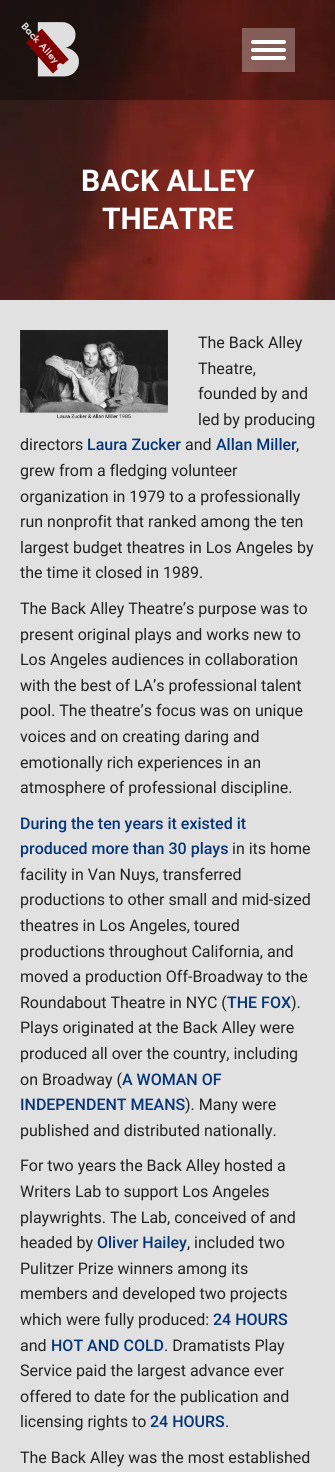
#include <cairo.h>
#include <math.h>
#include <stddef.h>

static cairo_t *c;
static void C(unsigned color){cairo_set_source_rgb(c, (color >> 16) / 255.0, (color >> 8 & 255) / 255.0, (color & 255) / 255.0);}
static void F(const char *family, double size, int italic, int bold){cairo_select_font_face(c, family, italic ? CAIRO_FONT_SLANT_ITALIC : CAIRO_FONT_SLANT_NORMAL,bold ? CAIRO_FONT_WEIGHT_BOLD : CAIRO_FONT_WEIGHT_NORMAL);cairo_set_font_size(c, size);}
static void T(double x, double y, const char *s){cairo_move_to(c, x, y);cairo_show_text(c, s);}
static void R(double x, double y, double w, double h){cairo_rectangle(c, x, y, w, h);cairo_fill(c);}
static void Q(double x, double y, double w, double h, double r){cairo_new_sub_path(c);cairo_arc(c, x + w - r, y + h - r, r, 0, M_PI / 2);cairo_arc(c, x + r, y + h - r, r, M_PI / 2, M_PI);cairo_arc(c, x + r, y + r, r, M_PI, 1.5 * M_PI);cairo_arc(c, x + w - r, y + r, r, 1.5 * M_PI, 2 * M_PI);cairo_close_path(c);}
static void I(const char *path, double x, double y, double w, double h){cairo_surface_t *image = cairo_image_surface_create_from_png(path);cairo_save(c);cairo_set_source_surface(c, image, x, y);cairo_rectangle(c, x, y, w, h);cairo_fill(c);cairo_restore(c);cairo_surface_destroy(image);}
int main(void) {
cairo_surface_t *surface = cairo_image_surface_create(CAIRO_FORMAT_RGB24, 335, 1472);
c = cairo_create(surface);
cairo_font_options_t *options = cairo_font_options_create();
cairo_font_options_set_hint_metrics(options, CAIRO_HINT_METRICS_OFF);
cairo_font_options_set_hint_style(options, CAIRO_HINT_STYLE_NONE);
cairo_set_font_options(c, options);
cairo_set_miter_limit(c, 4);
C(0xe1e1e1);
cairo_paint(c);
I("2.png",0,0,335,300);
cairo_set_source_rgba(c,0,0,0,0.35);
R(0,0,335,100);
I("1.png",21,22,58,55);
cairo_set_source_rgba(c,1,1,1,0.3);
R(242,28,53,44);
C(0xffffff);
Q(251,40,35,4,2);
cairo_fill(c);
Q(251,48,35,4,2);
cairo_fill(c);
Q(251,56,35,4,2);
cairo_fill(c);
F("Roboto",30,0,1);
T(81,191,"BACK ALLEY");
T(102,229,"THEATRE");
I("3.png",20,330,148,89);
F("Roboto",16,0,0);
C(0x222222);
T(198,348,"The Back Alley");
T(198,374,"Theatre,");
T(198,399,"founded by and");
T(198,425,"led by producing");
T(20,450,"directors");
F("Roboto Medium",16,0,0);
C(0x053577);
T(87,450,"Laura Zucker");
F("Roboto",16,0,0);
C(0x222222);
T(185,450,"and");
F("Roboto Medium",16,0,0);
C(0x053577);
T(216,450,"Allan Miller");
F("Roboto",16,0,0);
C(0x222222);
T(296,450,",");
T(20,476,"grew from a fledging volunteer");
T(20,502,"organization in 1979 to a professionally");
T(20,527,"run nonprofit that ranked among the ten");
T(20,553,"largest budget theatres in Los Angeles by");
T(20,578,"the time it closed in 1989.");
T(20,614,"The Back Alley Theatre’s purpose was to");
T(20,640,"present original plays and works new to");
T(20,665,"Los Angeles audiences in collaboration");
T(20,691,"with the best of LA’s professional talent");
T(20,716,"pool. The theatre’s focus was on unique");
T(20,742,"voices and on creating daring and");
T(20,768,"emotionally rich experiences in an");
T(20,793,"atmosphere of professional discipline.");
F("Roboto Medium",16,0,0);
C(0x053577);
T(20,829,"During the ten years it existed it");
T(20,854,"produced more than 30 plays");
F("Roboto",16,0,0);
C(0x222222);
T(232,854,"in its home");
T(20,880,"facility in Van Nuys, transferred");
T(20,905,"productions to other small and mid-sized");
T(20,931,"theatres in Los Angeles, toured");
T(20,957,"productions throughout California, and");
T(20,982,"moved a production Off-Broadway to the");
T(20,1008,"Roundabout Theatre in NYC (");
F("Roboto Medium",16,0,0);
C(0x053577);
T(227,1008,"THE FOX");
F("Roboto",16,0,0);
C(0x222222);
T(291,1008,").");
T(20,1033,"Plays originated at the Back Alley were");
T(20,1059,"produced all over the country, including");
T(20,1085,"on Broadway (");
F("Roboto Medium",16,0,0);
C(0x053577);
T(122,1085,"A WOMAN OF");
T(20,1110,"INDEPENDENT MEANS");
F("Roboto",16,0,0);
C(0x222222);
T(185,1110,"). Many were");
T(20,1136,"published and distributed nationally.");
T(20,1171,"For two years the Back Alley hosted a");
T(20,1197,"Writers Lab to support Los Angeles");
T(20,1223,"playwrights. The Lab, conceived of and");
T(20,1248,"headed by");
F("Roboto Medium",16,0,0);
C(0x053577);
T(97,1248,"Oliver Hailey");
F("Roboto",16,0,0);
C(0x222222);
T(187,1248,", included two");
T(20,1274,"Pulitzer Prize winners among its");
T(20,1299,"members and developed two projects");
T(20,1325,"which were fully produced:");
F("Roboto Medium",16,0,0);
C(0x053577);
T(213,1325,"24 HOURS");
F("Roboto",16,0,0);
C(0x222222);
T(20,1351,"and");
F("Roboto Medium",16,0,0);
C(0x053577);
T(51,1351,"HOT AND COLD");
F("Roboto",16,0,0);
C(0x222222);
T(164,1351,". Dramatists Play");
T(20,1376,"Service paid the largest advance ever");
T(20,1402,"offered to date for the publication and");
T(20,1427,"licensing rights to");
F("Roboto Medium",16,0,0);
C(0x053577);
T(150,1427,"24 HOURS");
F("Roboto",16,0,0);
C(0x222222);
T(225,1427,".");
T(20,1463,"The Back Alley was the most established");
cairo_surface_write_to_png(surface, "o.png");
cairo_font_options_destroy(options);
cairo_destroy(c);
cairo_surface_destroy(surface);
return 0;
}
